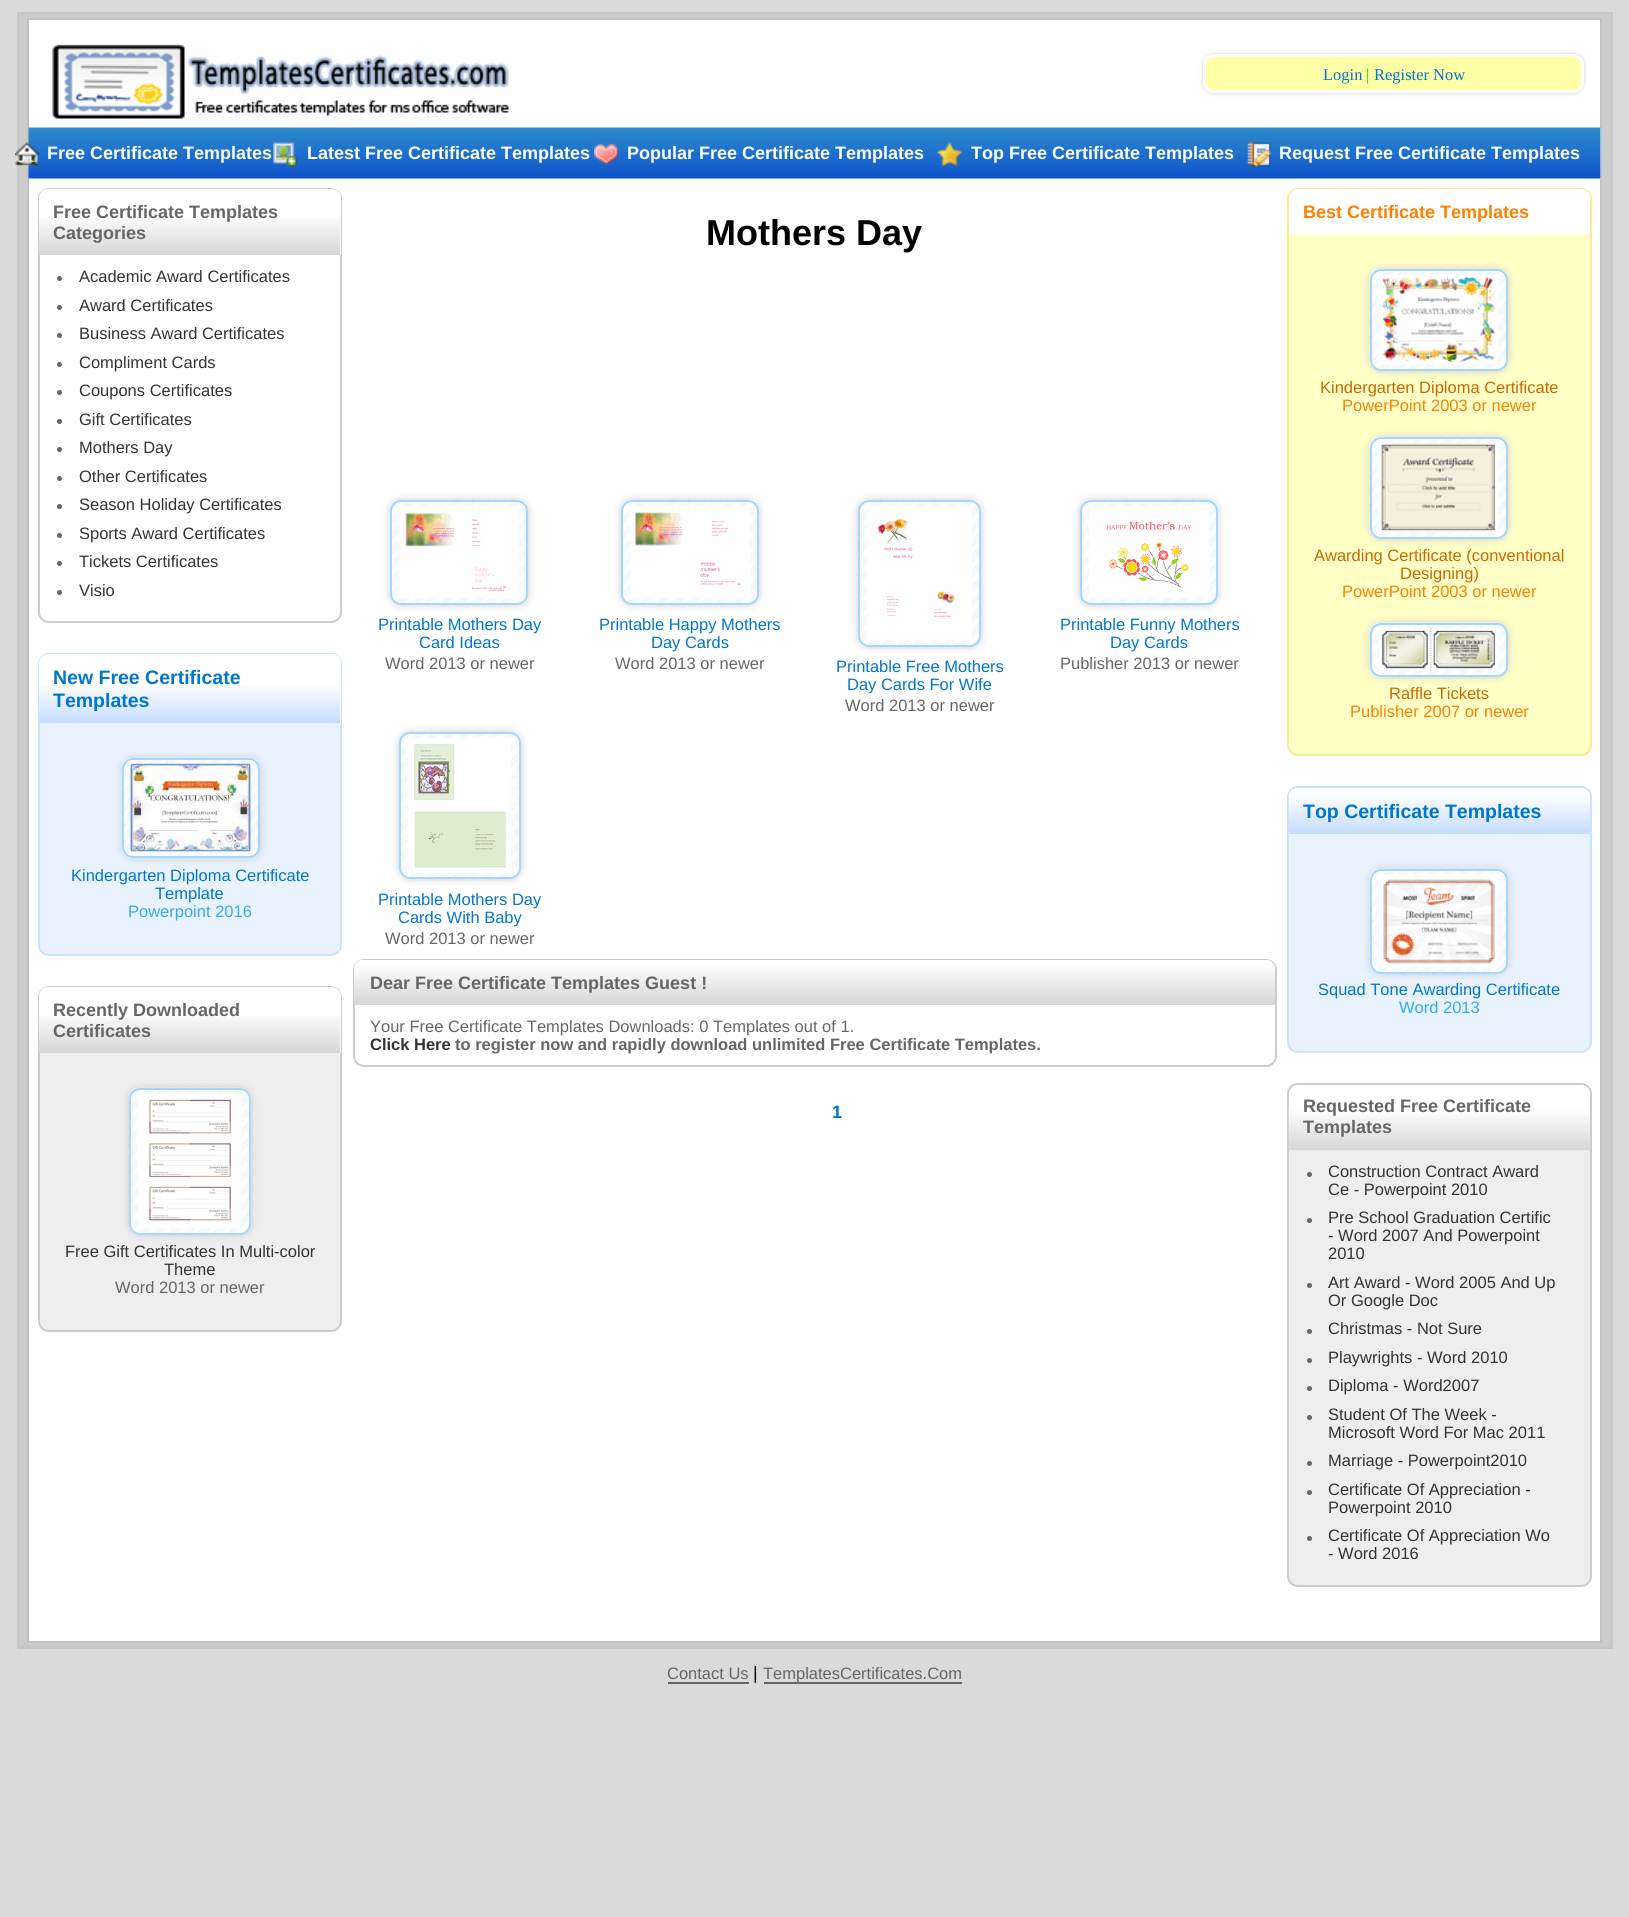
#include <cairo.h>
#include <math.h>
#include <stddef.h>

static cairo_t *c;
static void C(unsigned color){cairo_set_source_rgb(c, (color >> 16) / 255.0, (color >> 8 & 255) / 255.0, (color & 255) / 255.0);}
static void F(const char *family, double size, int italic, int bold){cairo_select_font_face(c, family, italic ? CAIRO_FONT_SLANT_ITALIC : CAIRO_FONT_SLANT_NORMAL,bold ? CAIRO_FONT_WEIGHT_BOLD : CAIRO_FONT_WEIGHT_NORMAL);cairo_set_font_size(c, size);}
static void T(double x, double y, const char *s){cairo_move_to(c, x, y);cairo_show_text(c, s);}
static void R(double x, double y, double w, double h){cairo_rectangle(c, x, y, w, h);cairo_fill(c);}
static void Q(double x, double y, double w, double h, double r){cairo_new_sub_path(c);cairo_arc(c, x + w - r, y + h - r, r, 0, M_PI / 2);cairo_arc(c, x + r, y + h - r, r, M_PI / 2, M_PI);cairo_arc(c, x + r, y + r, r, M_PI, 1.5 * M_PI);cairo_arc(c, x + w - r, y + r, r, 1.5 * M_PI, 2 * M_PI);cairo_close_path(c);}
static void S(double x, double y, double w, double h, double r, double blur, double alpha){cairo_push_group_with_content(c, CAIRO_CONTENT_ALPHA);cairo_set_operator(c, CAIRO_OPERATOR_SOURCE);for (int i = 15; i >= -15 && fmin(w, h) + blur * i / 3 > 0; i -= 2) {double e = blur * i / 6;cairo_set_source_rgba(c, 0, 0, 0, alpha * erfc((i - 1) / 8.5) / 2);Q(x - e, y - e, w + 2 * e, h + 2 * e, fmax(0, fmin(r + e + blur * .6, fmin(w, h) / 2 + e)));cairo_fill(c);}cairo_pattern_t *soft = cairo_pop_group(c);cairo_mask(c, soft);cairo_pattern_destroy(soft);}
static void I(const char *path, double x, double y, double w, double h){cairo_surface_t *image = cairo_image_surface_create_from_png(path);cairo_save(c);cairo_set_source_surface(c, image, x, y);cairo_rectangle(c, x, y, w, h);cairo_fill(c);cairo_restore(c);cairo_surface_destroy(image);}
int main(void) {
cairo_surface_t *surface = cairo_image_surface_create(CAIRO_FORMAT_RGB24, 1629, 1917);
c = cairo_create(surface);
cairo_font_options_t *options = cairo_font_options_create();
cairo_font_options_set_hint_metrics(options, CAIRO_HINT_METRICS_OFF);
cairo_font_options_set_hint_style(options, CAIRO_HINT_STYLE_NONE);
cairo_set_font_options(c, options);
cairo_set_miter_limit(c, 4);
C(0xdadada);
cairo_paint(c);
C(0xcccccc);
cairo_rectangle(c,18.5,13.5,1593,1634);
cairo_fill_preserve(c);
C(0xc7c7c7);
cairo_set_line_width(c,3);
cairo_stroke(c);
C(0xffffff);
cairo_rectangle(c,28,19,1573,1623);
cairo_fill_preserve(c);
C(0xc0c0c0);
cairo_set_line_width(c,2);
cairo_stroke(c);
I("1.png",52,44,457,75);
C(0xcecece);
S(1203,54,381,39,11,2,1);
C(0xffffa6);
Q(1204.5,55.5,378,36,9.5);
cairo_fill_preserve(c);
C(0xffffff);
cairo_set_line_width(c,3);
cairo_stroke(c);
F("Liberation Serif",16.5,0,0);
C(0x0076ce);
T(1323,80,"Login");
C(0x00e800);
T(1366,80,"|");
C(0x0076ce);
T(1374,80,"Register Now");
C(0xffffff);
R(1600,128,1,51);
I("2.png",28,127,1573,52);
I("3.png",15,142,24,25);
F("Liberation Sans",18,0,1);
T(47,159,"Free Certificate Templates");
I("4.png",273,142,24,25);
T(307,159,"Latest Free Certificate Templates");
I("5.png",594,143,24,23);
T(627,159,"Popular Free Certificate Templates");
I("6.png",937,142,25,25);
T(971,159,"Top Free Certificate Templates");
I("7.png",1246,142,25,25);
T(1279,159,"Request Free Certificate Templates");
Q(39,189,302,433,10);
C(0xcccccc);
cairo_set_line_width(c,2);
cairo_stroke(c);
C(0xffffff);
cairo_new_path(c);
cairo_move_to(c,48,189);
cairo_line_to(c,332,189);
cairo_curve_to(c,337,189,341,193,341,198);
cairo_line_to(c,341,255);
cairo_line_to(c,39,255);
cairo_line_to(c,39,198);
cairo_curve_to(c,39,193,43,189,48,189);
cairo_close_path(c);
cairo_fill(c);
I("8.png",39,218,302,37);
C(0x666666);
T(53,218,"Free Certificate Templates");
T(53,239,"Categories");
cairo_new_path(c);
cairo_arc(c,59.5,278.5,2.5,0,2 * M_PI);
cairo_fill(c);
F("Liberation Sans",16.5,0,0);
C(0x333333);
T(79,282,"Academic Award Certificates");
C(0x666666);
cairo_new_path(c);
cairo_arc(c,59.5,307.5,2.5,0,2 * M_PI);
cairo_fill(c);
C(0x333333);
T(79,311,"Award Certificates");
C(0x666666);
cairo_new_path(c);
cairo_arc(c,59.5,335.5,2.5,0,2 * M_PI);
cairo_fill(c);
C(0x333333);
T(79,339,"Business Award Certificates");
C(0x666666);
cairo_new_path(c);
cairo_arc(c,59.5,364.5,2.5,0,2 * M_PI);
cairo_fill(c);
C(0x333333);
T(79,368,"Compliment Cards");
C(0x666666);
cairo_new_path(c);
cairo_arc(c,59.5,392.5,2.5,0,2 * M_PI);
cairo_fill(c);
C(0x333333);
T(79,396,"Coupons Certificates");
C(0x666666);
cairo_new_path(c);
cairo_arc(c,59.5,421.5,2.5,0,2 * M_PI);
cairo_fill(c);
C(0x333333);
T(79,425,"Gift Certificates");
C(0x666666);
cairo_new_path(c);
cairo_arc(c,59.5,449.5,2.5,0,2 * M_PI);
cairo_fill(c);
C(0x333333);
T(79,453,"Mothers Day");
C(0x666666);
cairo_new_path(c);
cairo_arc(c,59.5,478.5,2.5,0,2 * M_PI);
cairo_fill(c);
C(0x333333);
T(79,482,"Other Certificates");
C(0x666666);
cairo_new_path(c);
cairo_arc(c,59.5,506.5,2.5,0,2 * M_PI);
cairo_fill(c);
C(0x333333);
T(79,510,"Season Holiday Certificates");
C(0x666666);
cairo_new_path(c);
cairo_arc(c,59.5,535.5,2.5,0,2 * M_PI);
cairo_fill(c);
C(0x333333);
T(79,539,"Sports Award Certificates");
C(0x666666);
cairo_new_path(c);
cairo_arc(c,59.5,563.5,2.5,0,2 * M_PI);
cairo_fill(c);
C(0x333333);
T(79,567,"Tickets Certificates");
C(0x666666);
cairo_new_path(c);
cairo_arc(c,59.5,592.5,2.5,0,2 * M_PI);
cairo_fill(c);
C(0x333333);
T(79,596,"Visio");
C(0xe8f3ff);
Q(39,654,302,301,10);
cairo_fill_preserve(c);
C(0xcae4ff);
cairo_stroke(c);
C(0xffffff);
cairo_new_path(c);
cairo_move_to(c,48,654);
cairo_line_to(c,332,654);
cairo_curve_to(c,337,654,341,658,341,663);
cairo_line_to(c,341,723);
cairo_line_to(c,39,723);
cairo_line_to(c,39,663);
cairo_curve_to(c,39,658,43,654,48,654);
cairo_close_path(c);
cairo_fill(c);
I("9.png",39,686,302,37);
F("Liberation Sans",19.5,0,1);
C(0x0076ce);
T(53,684,"New Free Certificate");
T(53,707,"Templates");
C(0xcccccc);
S(122,758,138,100,11,4,1);
I("10.png",121,757,139,101);
Q(123,759,136,98,10);
C(0xa4d6ff);
cairo_stroke(c);
I("11.png",130,763,121,89);
F("Liberation Sans",16.5,0,0);
C(0x0076ce);
T(71,881,"Kindergarten Diploma Certificate");
T(155,899,"Template");
C(0x33a8ff);
T(128,917,"Powerpoint 2016");
C(0xeeeeee);
Q(39,987,302,344,10);
cairo_fill_preserve(c);
C(0xcccccc);
cairo_stroke(c);
C(0xffffff);
cairo_new_path(c);
cairo_move_to(c,48,987);
cairo_line_to(c,332,987);
cairo_curve_to(c,337,987,341,991,341,996);
cairo_line_to(c,341,1053);
cairo_line_to(c,39,1053);
cairo_line_to(c,39,996);
cairo_curve_to(c,39,991,43,987,48,987);
cairo_close_path(c);
cairo_fill(c);
I("8.png",39,1016,302,37);
F("Liberation Sans",18,0,1);
C(0x666666);
T(53,1016,"Recently Downloaded");
T(53,1037,"Certificates");
C(0xcccccc);
S(129,1088,122,147,11,4,1);
I("12.png",129,1087,122,148);
F("Liberation Sans",16.5,0,0);
C(0x333333);
T(65,1257,"Free Gift Certificates In Multi-color");
Q(130,1089,120,145,10);
C(0xa4d6ff);
cairo_stroke(c);
C(0x333333);
T(164,1275,"Theme");
C(0x666666);
T(115,1293,"Word 2013 or newer");
F("Liberation Sans",36,0,1);
C(0x000000);
T(706,245,"Mothers Day");
C(0xcccccc);
S(390,500,138,105,11,4,1);
I("13.png",390,500,138,104);
Q(391,501,136,103,10);
C(0xa4d6ff);
cairo_stroke(c);
F("Liberation Sans",16.5,0,0);
C(0x0076ce);
T(378,630,"Printable Mothers Day");
T(419,648,"Card Ideas");
C(0x666666);
T(385,669,"Word 2013 or newer");
C(0xcccccc);
S(621,500,138,105,11,4,1);
I("14.png",621,500,138,104);
Q(622,501,136,103,10);
C(0xa4d6ff);
cairo_stroke(c);
C(0x0076ce);
T(599,630,"Printable Happy Mothers");
T(651,648,"Day Cards");
C(0x666666);
T(615,669,"Word 2013 or newer");
C(0xcccccc);
S(1080,500,138,105,11,4,1);
I("15.png",1080,500,138,104);
Q(1081,501,136,103,10);
C(0xa4d6ff);
cairo_stroke(c);
C(0x0076ce);
T(1060,630,"Printable Funny Mothers");
T(1110,648,"Day Cards");
C(0x666666);
T(1060,669,"Publisher 2013 or newer");
C(0xcccccc);
S(858,500,123,147,11,4,1);
I("16.png",858,500,123,146);
Q(859,501,121,145,10);
C(0xa4d6ff);
cairo_stroke(c);
C(0x0076ce);
T(836,672,"Printable Free Mothers");
T(847,690,"Day Cards For Wife");
C(0x666666);
T(845,711,"Word 2013 or newer");
C(0xcccccc);
S(399,732,122,147,11,4,1);
I("17.png",399,732,121,147);
Q(400,733,120,145,10);
C(0xa4d6ff);
cairo_stroke(c);
C(0x0076ce);
T(378,905,"Printable Mothers Day");
T(398,923,"Cards With Baby");
C(0x666666);
T(385,944,"Word 2013 or newer");
Q(354,960,922,106,10);
C(0xcccccc);
cairo_stroke(c);
C(0xffffff);
cairo_new_path(c);
cairo_move_to(c,363,960);
cairo_line_to(c,1266,960);
cairo_curve_to(c,1271,960,1275,964,1275,969);
cairo_line_to(c,1275,1005);
cairo_line_to(c,354,1005);
cairo_line_to(c,354,969);
cairo_curve_to(c,354,964,358,960,363,960);
cairo_close_path(c);
cairo_fill(c);
I("18.png",354,960,921,45);
F("Liberation Sans",18,0,1);
C(0x666666);
T(370,989,"Dear Free Certificate Templates Guest !");
F("Liberation Sans",16.5,0,0);
T(370,1032,"Your Free Certificate Templates Downloads: 0 Templates out of 1.");
F("Liberation Sans",16.5,0,1);
C(0x333333);
T(370,1050,"Click Here");
C(0x666666);
T(455,1050,"to register now and rapidly download unlimited Free Certificate Templates.");
F("Liberation Sans",18,0,1);
C(0x0076ce);
T(832,1118,"1");
C(0xffffc6);
Q(1288,189,303,566,10);
cairo_fill_preserve(c);
C(0xffe991);
cairo_stroke(c);
C(0xffffff);
cairo_new_path(c);
cairo_move_to(c,1298,189);
cairo_line_to(c,1581,189);
cairo_curve_to(c,1586,189,1590,193,1590,198);
cairo_line_to(c,1590,234);
cairo_line_to(c,1289,234);
cairo_line_to(c,1289,198);
cairo_curve_to(c,1289,193,1293,189,1298,189);
cairo_close_path(c);
cairo_fill(c);
C(0xff8000);
T(1303,218,"Best Certificate Templates");
C(0xcccccc);
S(1370,269,138,102,11,4,1);
I("19.png",1369,268,139,103);
F("Liberation Sans",16.5,0,0);
C(0xce6700);
T(1320,393,"Kindergarten Diploma Certificate");
Q(1371,270,136,100,10);
C(0xa4d6ff);
cairo_stroke(c);
C(0xff8000);
T(1342,411,"PowerPoint 2003 or newer");
C(0xcccccc);
S(1370,437,138,102,11,4,1);
I("20.png",1369,436,139,103);
C(0xce6700);
T(1314,561,"Awarding Certificate (conventional");
Q(1371,438,136,100,10);
C(0xa4d6ff);
cairo_stroke(c);
C(0xce6700);
T(1400,579,"Designing)");
C(0xff8000);
T(1342,597,"PowerPoint 2003 or newer");
C(0xcccccc);
S(1370,623,138,54,11,4,1);
I("21.png",1369,622,139,55);
Q(1371,624,136,52,10);
C(0xa4d6ff);
cairo_stroke(c);
I("22.png",1430,628,2,43);
C(0xce6700);
T(1389,699,"Raffle Tickets");
C(0xff8000);
T(1350,717,"Publisher 2007 or newer");
C(0xe8f3ff);
Q(1288,787,303,265,10);
cairo_fill_preserve(c);
C(0xcae4ff);
cairo_stroke(c);
C(0xffffff);
cairo_new_path(c);
cairo_move_to(c,1298,788);
cairo_line_to(c,1581,788);
cairo_curve_to(c,1586,788,1590,792,1590,797);
cairo_line_to(c,1590,834);
cairo_line_to(c,1289,834);
cairo_line_to(c,1289,797);
cairo_curve_to(c,1289,792,1293,788,1298,788);
cairo_close_path(c);
cairo_fill(c);
I("23.png",1288,789,302,45);
F("Liberation Sans",19.5,0,1);
C(0x0076ce);
T(1303,818,"Top Certificate Templates");
C(0xcccccc);
S(1370,869,138,105,11,4,1);
I("24.png",1369,868,139,106);
F("Liberation Sans",16.5,0,0);
C(0x0076ce);
T(1318,995,"Squad Tone Awarding Certificate");
Q(1371,870,136,103,10);
C(0xa4d6ff);
cairo_stroke(c);
C(0x33a8ff);
T(1399,1013,"Word 2013");
C(0xeeeeee);
Q(1288,1084,303,502,10);
cairo_fill_preserve(c);
C(0xcccccc);
cairo_stroke(c);
C(0xffffff);
cairo_new_path(c);
cairo_move_to(c,1298,1085);
cairo_line_to(c,1581,1085);
cairo_curve_to(c,1586,1085,1590,1089,1590,1094);
cairo_line_to(c,1590,1151);
cairo_line_to(c,1289,1151);
cairo_line_to(c,1289,1094);
cairo_curve_to(c,1289,1089,1293,1085,1298,1085);
cairo_close_path(c);
cairo_fill(c);
I("25.png",1288,1105,302,46);
F("Liberation Sans",18,0,1);
C(0x666666);
T(1303,1112,"Requested Free Certificate");
T(1303,1133,"Templates");
cairo_new_path(c);
cairo_arc(c,1309.5,1174.5,2.5,0,2 * M_PI);
cairo_fill(c);
F("Liberation Sans",16.5,0,0);
C(0x333333);
T(1328,1177,"Construction Contract Award");
T(1328,1195,"Ce - Powerpoint 2010");
C(0x666666);
cairo_new_path(c);
cairo_arc(c,1309.5,1220.5,2.5,0,2 * M_PI);
cairo_fill(c);
C(0x333333);
T(1328,1223,"Pre School Graduation Certific");
T(1328,1241,"- Word 2007 And Powerpoint");
T(1328,1259,"2010");
C(0x666666);
cairo_new_path(c);
cairo_arc(c,1309.5,1285.5,2.5,0,2 * M_PI);
cairo_fill(c);
C(0x333333);
T(1328,1288,"Art Award - Word 2005 And Up");
T(1328,1306,"Or Google Doc");
C(0x666666);
cairo_new_path(c);
cairo_arc(c,1309.5,1331.5,2.5,0,2 * M_PI);
cairo_fill(c);
C(0x333333);
T(1328,1334,"Christmas - Not Sure");
C(0x666666);
cairo_new_path(c);
cairo_arc(c,1309.5,1360.5,2.5,0,2 * M_PI);
cairo_fill(c);
C(0x333333);
T(1328,1363,"Playwrights - Word 2010");
C(0x666666);
cairo_new_path(c);
cairo_arc(c,1309.5,1388.5,2.5,0,2 * M_PI);
cairo_fill(c);
C(0x333333);
T(1328,1391,"Diploma - Word2007");
C(0x666666);
cairo_new_path(c);
cairo_arc(c,1309.5,1417.5,2.5,0,2 * M_PI);
cairo_fill(c);
C(0x333333);
T(1328,1420,"Student Of The Week -");
T(1328,1438,"Microsoft Word For Mac 2011");
C(0x666666);
cairo_new_path(c);
cairo_arc(c,1309.5,1463.5,2.5,0,2 * M_PI);
cairo_fill(c);
C(0x333333);
T(1328,1466,"Marriage - Powerpoint2010");
C(0x666666);
cairo_new_path(c);
cairo_arc(c,1309.5,1492.5,2.5,0,2 * M_PI);
cairo_fill(c);
C(0x333333);
T(1328,1495,"Certificate Of Appreciation -");
T(1328,1513,"Powerpoint 2010");
C(0x666666);
cairo_new_path(c);
cairo_arc(c,1309.5,1538.5,2.5,0,2 * M_PI);
cairo_fill(c);
C(0x333333);
T(1328,1541,"Certificate Of Appreciation Wo");
T(1328,1559,"- Word 2016");
C(0x666666);
T(667,1679,"Contact Us");
R(668,1682,81,2);
F("Liberation Sans",18,0,0);
C(0x000000);
T(753,1679,"|");
C(0x666666);
R(764,1682,198,2);
F("Liberation Sans",16.5,0,0);
T(763,1679,"TemplatesCertificates.Com");
cairo_surface_write_to_png(surface, "o.png");
cairo_font_options_destroy(options);
cairo_destroy(c);
cairo_surface_destroy(surface);
return 0;
}
